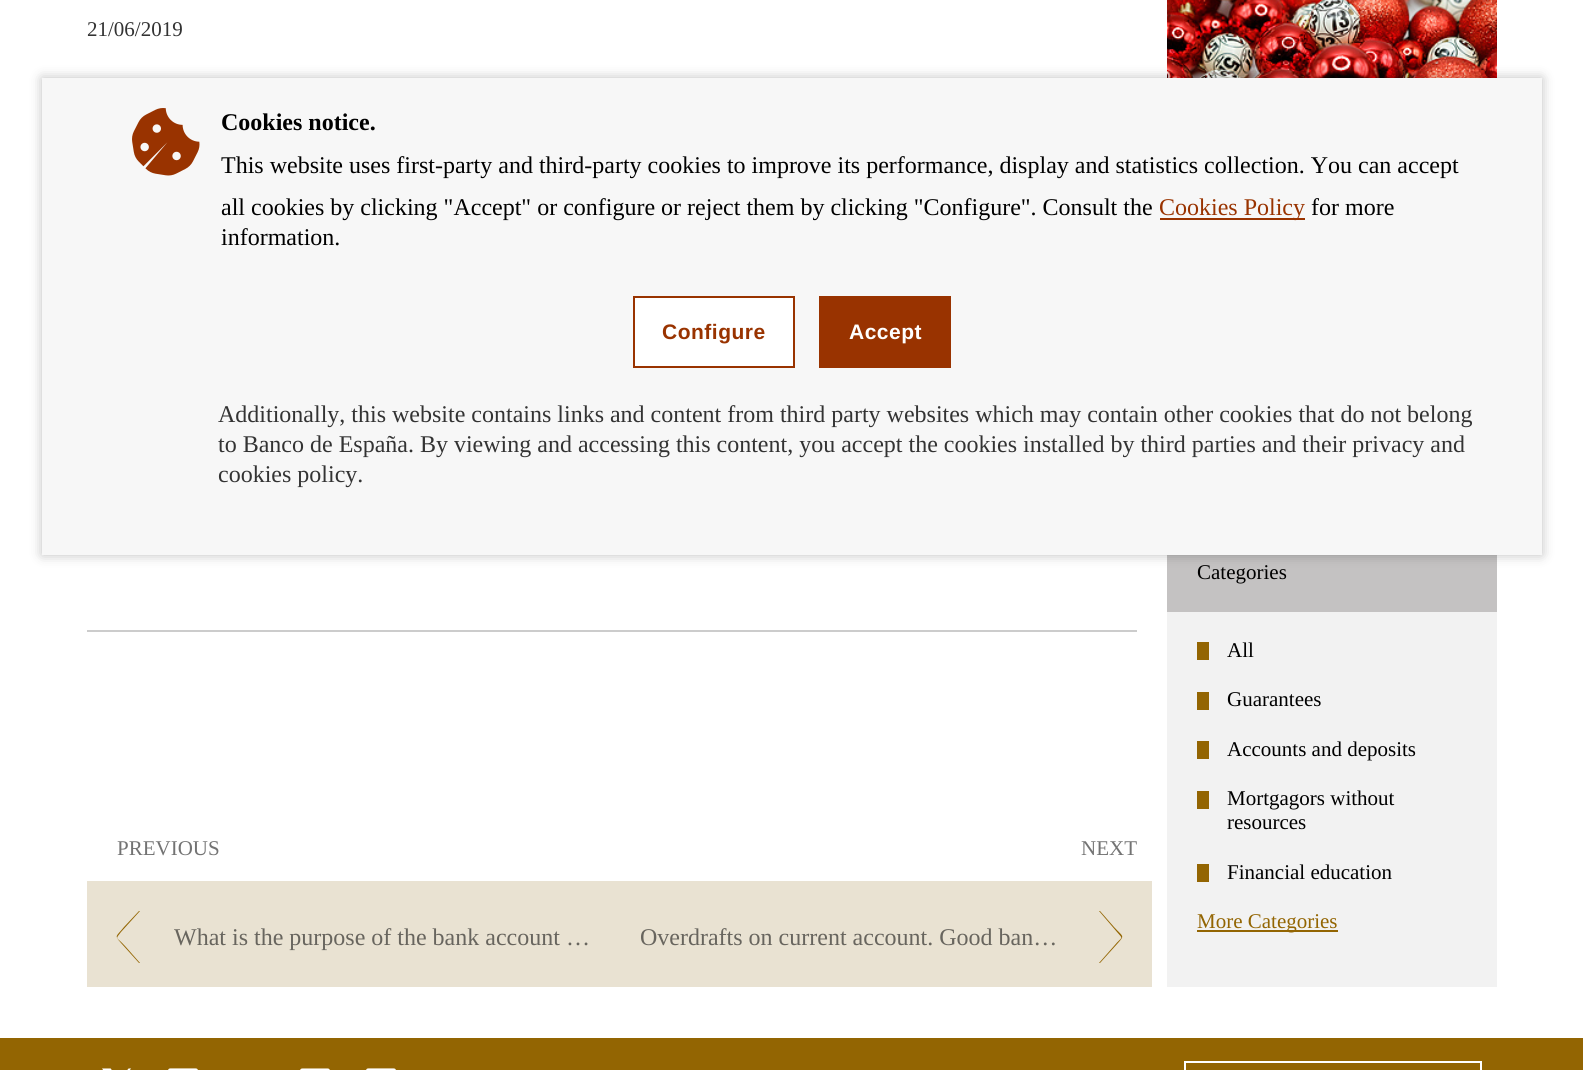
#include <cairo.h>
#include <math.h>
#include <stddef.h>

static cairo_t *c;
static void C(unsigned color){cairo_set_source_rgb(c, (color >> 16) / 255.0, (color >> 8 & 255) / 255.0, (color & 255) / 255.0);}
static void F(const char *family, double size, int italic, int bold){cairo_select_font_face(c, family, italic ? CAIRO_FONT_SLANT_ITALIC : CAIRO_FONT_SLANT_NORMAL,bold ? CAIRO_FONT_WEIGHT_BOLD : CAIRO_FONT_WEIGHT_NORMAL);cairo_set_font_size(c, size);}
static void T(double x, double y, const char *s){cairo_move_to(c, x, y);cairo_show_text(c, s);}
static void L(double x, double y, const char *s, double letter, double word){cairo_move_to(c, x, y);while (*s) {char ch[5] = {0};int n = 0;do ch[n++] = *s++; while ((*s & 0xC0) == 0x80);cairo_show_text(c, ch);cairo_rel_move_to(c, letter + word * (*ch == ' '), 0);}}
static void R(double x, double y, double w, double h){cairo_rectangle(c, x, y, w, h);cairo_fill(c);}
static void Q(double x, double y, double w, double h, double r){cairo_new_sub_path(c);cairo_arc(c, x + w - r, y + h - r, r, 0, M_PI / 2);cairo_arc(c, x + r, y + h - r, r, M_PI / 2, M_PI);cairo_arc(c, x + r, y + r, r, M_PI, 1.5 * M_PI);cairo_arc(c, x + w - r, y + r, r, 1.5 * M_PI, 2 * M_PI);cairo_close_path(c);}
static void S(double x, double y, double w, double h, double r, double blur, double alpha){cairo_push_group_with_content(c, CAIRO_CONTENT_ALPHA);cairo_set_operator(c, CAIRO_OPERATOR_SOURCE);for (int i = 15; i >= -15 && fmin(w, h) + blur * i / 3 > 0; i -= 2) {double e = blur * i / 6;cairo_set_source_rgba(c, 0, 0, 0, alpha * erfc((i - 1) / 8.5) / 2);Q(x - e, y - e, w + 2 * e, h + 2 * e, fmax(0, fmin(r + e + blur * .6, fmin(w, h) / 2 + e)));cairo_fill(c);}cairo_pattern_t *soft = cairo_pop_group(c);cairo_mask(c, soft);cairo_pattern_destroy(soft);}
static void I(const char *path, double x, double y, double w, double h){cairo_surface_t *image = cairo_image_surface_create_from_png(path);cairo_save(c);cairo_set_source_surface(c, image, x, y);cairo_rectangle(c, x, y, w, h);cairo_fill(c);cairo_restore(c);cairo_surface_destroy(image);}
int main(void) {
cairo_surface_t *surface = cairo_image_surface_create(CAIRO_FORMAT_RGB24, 1583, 1070);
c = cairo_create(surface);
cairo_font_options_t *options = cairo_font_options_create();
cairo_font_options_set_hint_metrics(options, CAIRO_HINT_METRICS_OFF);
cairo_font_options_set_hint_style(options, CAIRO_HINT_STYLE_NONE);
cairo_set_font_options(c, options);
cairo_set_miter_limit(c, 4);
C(0xffffff);
cairo_paint(c);
F("Liberation Serif",21,0,0);
C(0x333333);
T(87,36,"21/06/2019");
C(0xcccccc);
R(87,630,1050,2);
C(0xe9e2d2);
R(87,881,1065,106);
C(0x737373);
T(117,855,"PREVIOUS");
C(0x936502);
cairo_new_path(c);
cairo_move_to(c,139,963);
cairo_line_to(c,121,943);
cairo_curve_to(c,114,935,116,937,124,927);
cairo_line_to(c,139,911);
cairo_line_to(c,140,911);
cairo_line_to(c,121,932);
cairo_curve_to(c,115,940,116,936,125,946);
cairo_line_to(c,140,963);
cairo_close_path(c);
cairo_fill(c);
F("Liberation Serif",24,0,0);
C(0x68655e);
T(174,945,"What is the purpose of the bank account …");
F("Liberation Serif",21,0,0);
C(0x737373);
T(1081,855,"NEXT");
F("Liberation Serif",24,0,0);
C(0x68655e);
T(640,945,"Overdrafts on current account. Good ban…");
C(0x936502);
cairo_new_path(c);
cairo_move_to(c,1100,963);
cairo_line_to(c,1118,943);
cairo_curve_to(c,1125,935,1123,937,1114,927);
cairo_line_to(c,1100,911);
cairo_line_to(c,1099,911);
cairo_line_to(c,1117,932);
cairo_curve_to(c,1124,940,1122,936,1114,946);
cairo_line_to(c,1099,963);
cairo_close_path(c);
cairo_fill(c);
C(0xf2f2f2);
R(1167,612,330,375);
I("1.png",1167,0,330,78);
C(0xc4c2c2);
R(1167,555,330,57);
F("Liberation Serif",21,0,0);
C(0x000000);
T(1197,579,"Categories");
C(0x936502);
R(1197,642,12,18);
C(0x000000);
T(1227,657,"All");
C(0x936502);
R(1197,692,12,18);
C(0x000000);
T(1227,706,"Guarantees");
C(0x936502);
R(1197,741,12,18);
C(0x000000);
T(1227,756,"Accounts and deposits");
C(0x936502);
R(1197,791,12,18);
C(0x000000);
T(1227,805,"Mortgagors without");
T(1227,829,"resources");
C(0x936502);
R(1197,864,12,18);
C(0x000000);
T(1227,879,"Financial education");
C(0x936502);
R(1197,930,141,2);
T(1197,928,"More Categories");
R(0,1038,1583,32);
I("2.png",102,1068,29,2);
I("3.png",168,1068,30,2);
I("4.png",300,1068,30,2);
I("5.png",366,1068,30,2);
cairo_rectangle(c,1185,1062,296,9);
C(0xffffff);
cairo_stroke(c);
C(0x000000);
S(42,78,1500,477,0,6,.25);
C(0xf7f7f7);
R(42,78,1500,477);
I("6.png",132,108,68,68);
F("Liberation Serif",24,0,1);
C(0x000000);
T(221,130,"Cookies notice.");
F("Liberation Serif",24,0,0);
T(221,173,"This website uses first-party and third-party cookies to improve its performance, display and statistics collection. You can accept");
T(221,215,"all cookies by clicking \"Accept\" or configure or reject them by clicking \"Configure\". Consult the");
C(0x993300);
R(1160,218,145,2);
T(1159,215,"Cookies Policy");
C(0x000000);
T(1311,215,"for more");
T(221,245,"information.");
C(0xffffff);
cairo_rectangle(c,634,297,160,70);
cairo_fill_preserve(c);
C(0x993300);
cairo_stroke(c);
F("Liberation Sans",21,0,1);
L(662,339,"Configure",.5,0);
R(819,296,132,72);
C(0xffffff);
L(849,339,"Accept",.5,0);
F("Liberation Serif",24,0,0);
C(0x333333);
T(218,422,"Additionally, this website contains links and content from third party websites which may contain other cookies that do not belong");
T(218,452,"to Banco de España. By viewing and accessing this content, you accept the cookies installed by third parties and their privacy and");
T(218,482,"cookies policy.");
cairo_surface_write_to_png(surface, "o.png");
cairo_font_options_destroy(options);
cairo_destroy(c);
cairo_surface_destroy(surface);
return 0;
}
